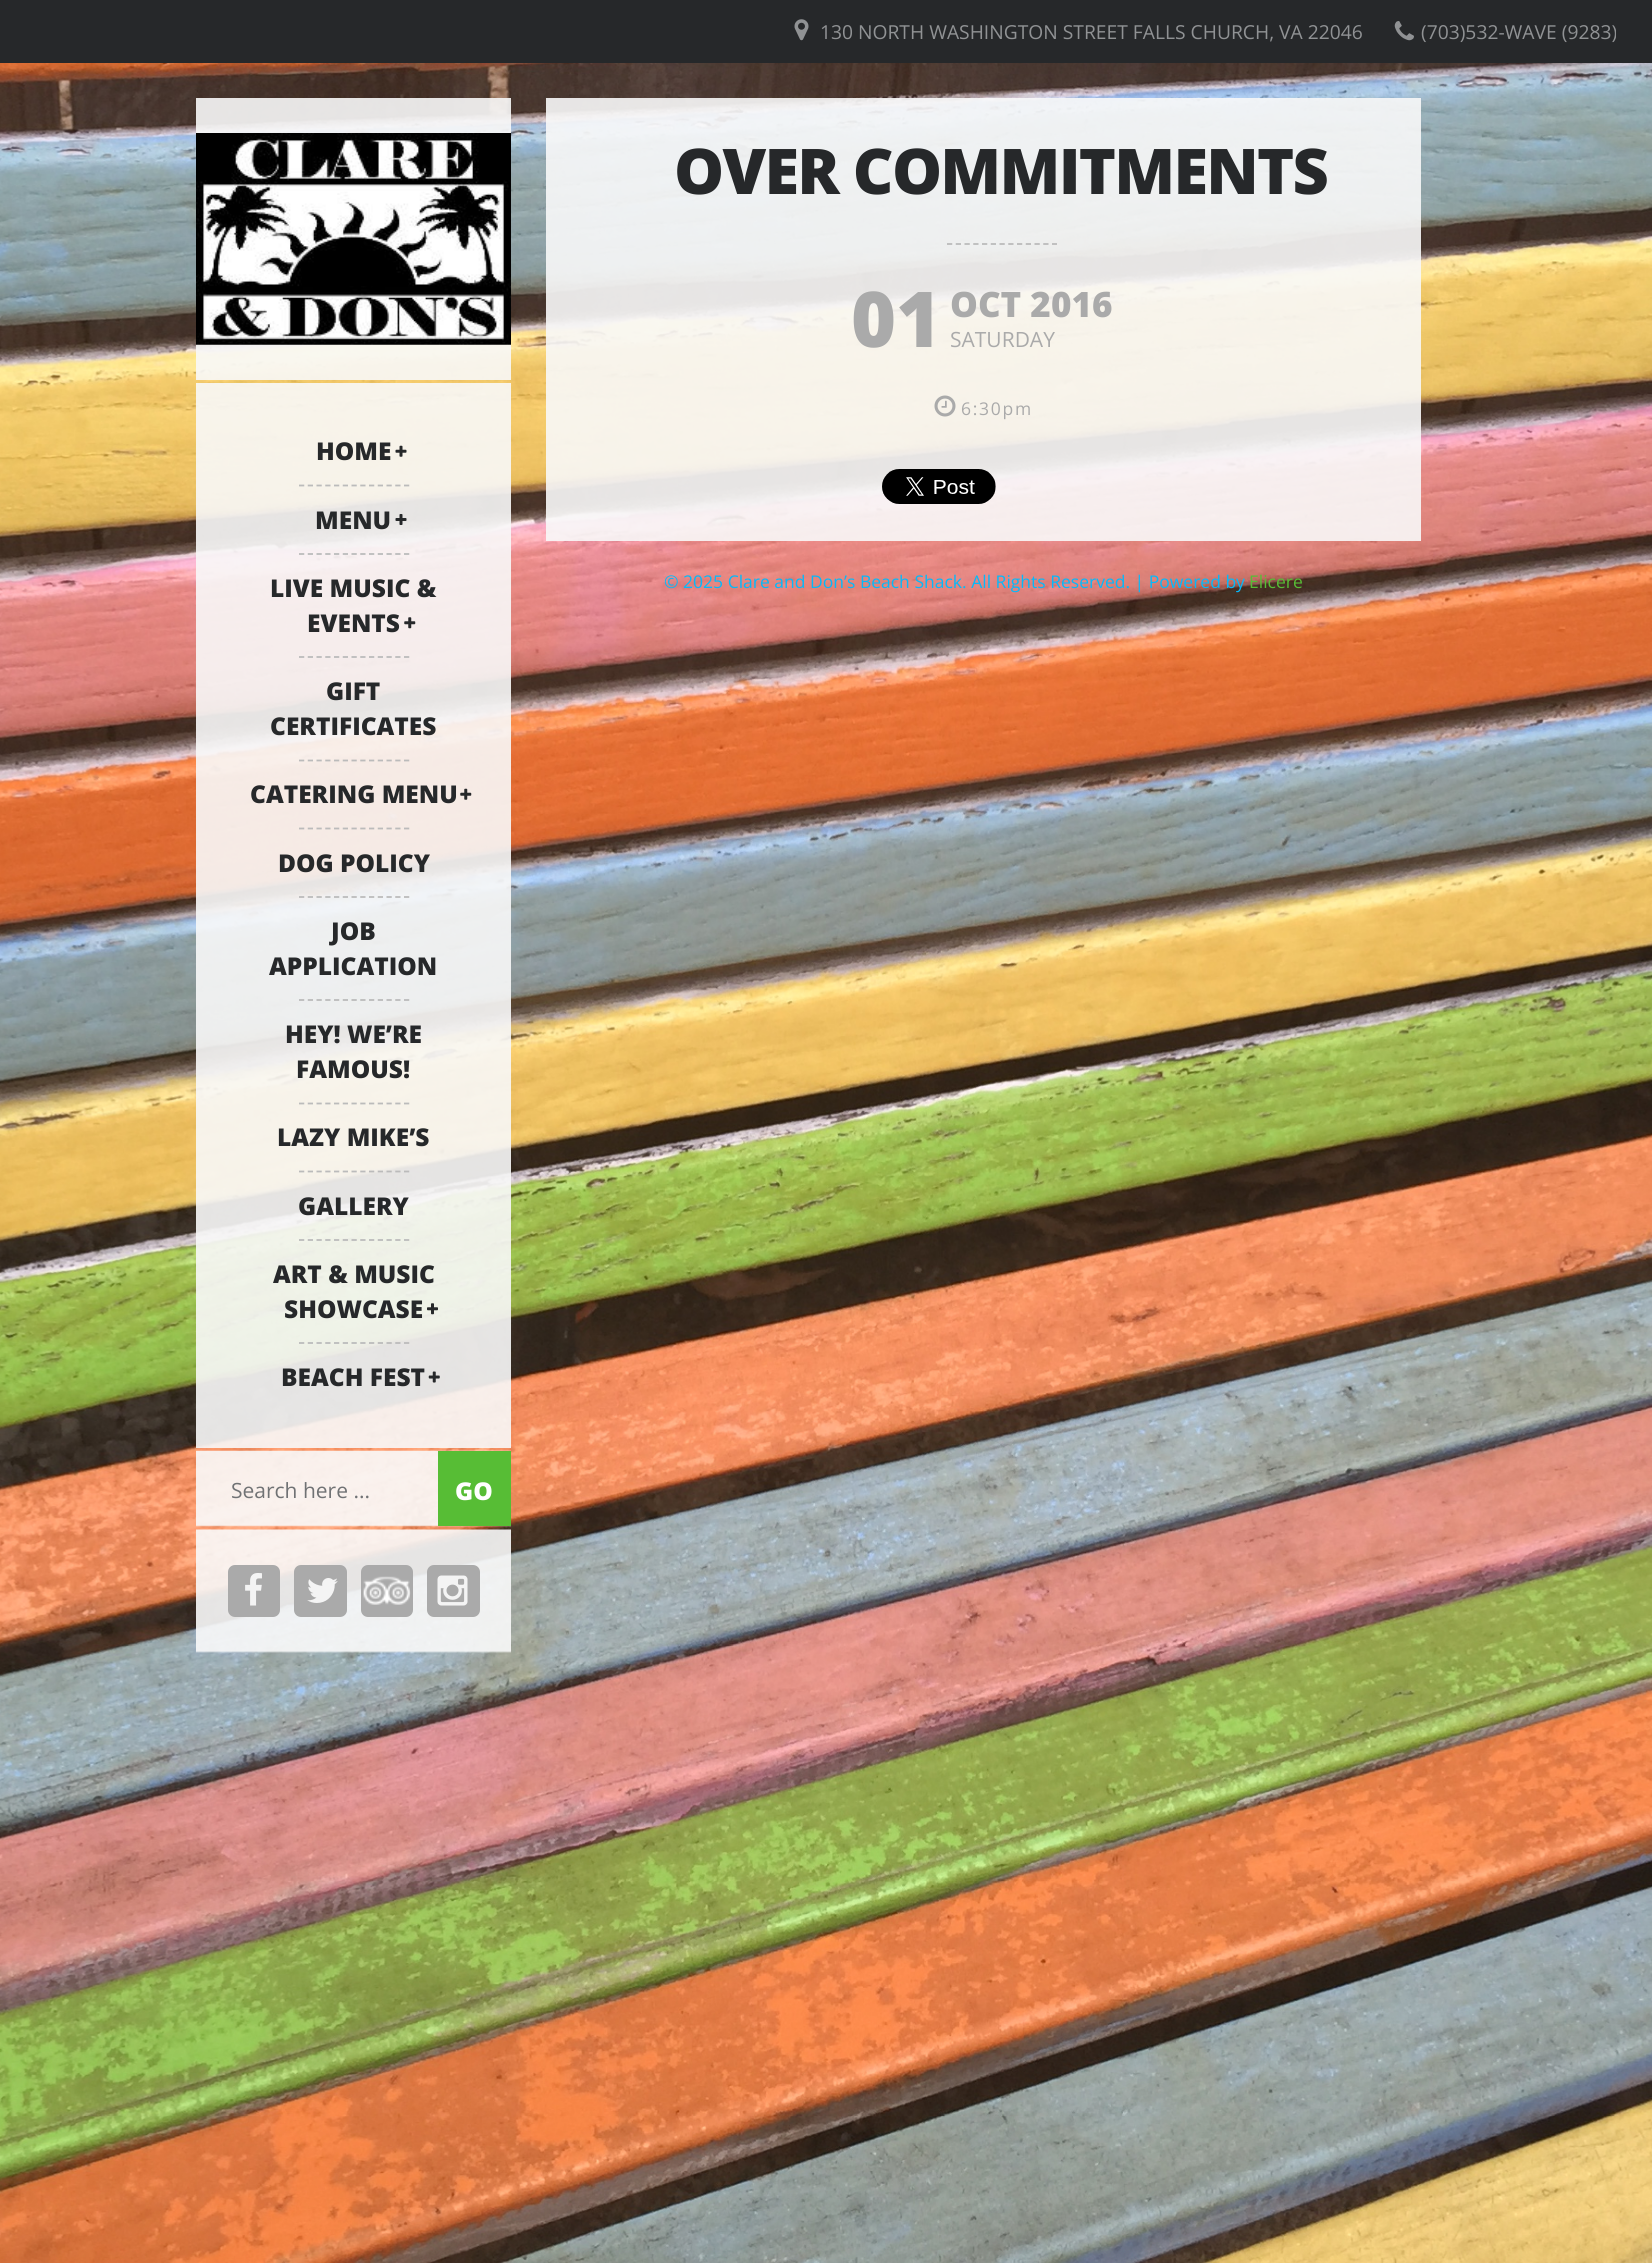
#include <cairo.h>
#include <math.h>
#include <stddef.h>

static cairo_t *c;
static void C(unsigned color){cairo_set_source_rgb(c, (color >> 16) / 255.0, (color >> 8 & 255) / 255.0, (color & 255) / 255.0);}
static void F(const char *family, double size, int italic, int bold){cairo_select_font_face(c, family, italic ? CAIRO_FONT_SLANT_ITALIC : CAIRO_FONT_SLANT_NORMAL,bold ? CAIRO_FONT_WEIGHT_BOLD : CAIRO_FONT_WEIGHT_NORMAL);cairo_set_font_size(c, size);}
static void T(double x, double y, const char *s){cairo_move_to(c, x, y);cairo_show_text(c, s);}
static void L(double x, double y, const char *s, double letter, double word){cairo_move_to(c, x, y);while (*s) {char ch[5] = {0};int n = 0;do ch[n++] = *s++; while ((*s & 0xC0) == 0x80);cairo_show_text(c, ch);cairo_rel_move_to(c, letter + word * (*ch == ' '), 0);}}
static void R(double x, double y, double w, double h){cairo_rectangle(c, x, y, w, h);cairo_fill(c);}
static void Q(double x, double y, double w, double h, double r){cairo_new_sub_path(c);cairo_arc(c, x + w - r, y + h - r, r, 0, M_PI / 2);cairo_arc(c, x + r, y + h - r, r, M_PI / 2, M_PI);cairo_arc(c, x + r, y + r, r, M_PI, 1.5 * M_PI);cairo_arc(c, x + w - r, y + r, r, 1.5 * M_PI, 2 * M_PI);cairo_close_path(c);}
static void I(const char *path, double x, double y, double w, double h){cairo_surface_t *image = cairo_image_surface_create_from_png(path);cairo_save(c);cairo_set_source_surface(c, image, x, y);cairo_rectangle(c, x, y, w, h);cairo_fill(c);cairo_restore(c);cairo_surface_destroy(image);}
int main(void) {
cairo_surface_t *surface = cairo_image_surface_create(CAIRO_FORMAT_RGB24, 1652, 2263);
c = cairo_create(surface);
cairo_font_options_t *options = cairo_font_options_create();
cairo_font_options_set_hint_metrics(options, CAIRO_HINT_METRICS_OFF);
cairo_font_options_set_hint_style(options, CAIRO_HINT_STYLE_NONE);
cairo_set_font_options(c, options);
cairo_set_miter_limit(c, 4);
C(0xffffff);
cairo_paint(c);
C(0x26282a);
R(0,0,1652,63);
I("1.png",794,19,15,22);
F("Open Sans",19.25,0,0);
C(0x909294);
T(820,39,"130 NORTH WASHINGTON STREET FALLS CHURCH, VA 22046");
I("2.png",1394,21,20,20);
T(1421,39,"(703)532-WAVE (9283)");
I("3.png",0,63,1652,2200);
cairo_set_source_rgba(c,0.976,0.976,0.976,0.9);
R(546,98,875,443);
F("Open Sans ExtraBold",63,0,0);
C(0x26282a);
L(674,194,"OVER COMMITMENTS",-1.75,0);
cairo_new_path(c);
cairo_move_to(c,947,244);
cairo_line_to(c,1057,244);
C(0xbbbbbb);
cairo_set_line_width(c,1.8);
cairo_set_dash(c,(double[]){5.25,3.5},2,0);
cairo_stroke(c);
F("Open Sans ExtraBold",77,0,0);
C(0xaaaaaa);
T(851,347,"01");
F("Open Sans ExtraBold",35,0,0);
T(950,317,"OCT 2016");
F("Open Sans",21,0,0);
T(950,347,"SATURDAY");
I("4.png",934,395,22,22);
F("Open Sans",17.5,0,0);
L(961,415,"6:30pm",1.75,0);
I("5.png",882,469,114,35);
C(0x05b9fa);
T(664,588,"© 2025 Clare and Don’s Beach Shack. All Rights Reserved. | Powered by");
C(0x57bd35);
T(1249,588,"Elicere");
cairo_set_source_rgba(c,0.976,0.976,0.976,0.9);
R(196,98,315,282);
I("6.png",196,133,315,212);
R(196,383,315,1065);
F("Open Sans ExtraBold",24.5,0,0);
C(0x26282a);
T(316,460,"HOME");
I("7.png",395,445,12,12);
cairo_new_path(c);
cairo_move_to(c,299,485.5);
cairo_line_to(c,409.5,485.5);
C(0xbbbbbb);
cairo_stroke(c);
C(0x26282a);
T(315,529,"MENU");
I("8.png",395,514,12,11);
cairo_new_path(c);
cairo_move_to(c,299,554);
cairo_line_to(c,409.5,554);
C(0xbbbbbb);
cairo_stroke(c);
C(0x26282a);
T(270,597,"LIVE MUSIC &");
T(307,632,"EVENTS");
I("9.png",404,617,12,12);
cairo_new_path(c);
cairo_move_to(c,299,657);
cairo_line_to(c,409.5,657);
C(0xbbbbbb);
cairo_stroke(c);
C(0x26282a);
T(326,700,"GIFT");
T(270,735,"CERTIFICATES");
cairo_new_path(c);
cairo_move_to(c,299,760.5);
cairo_line_to(c,409.5,760.5);
C(0xbbbbbb);
cairo_stroke(c);
C(0x26282a);
T(250,803,"CATERING MENU");
I("10.png",460,788,12,12);
cairo_new_path(c);
cairo_move_to(c,299,828.5);
cairo_line_to(c,409.5,828.5);
C(0xbbbbbb);
cairo_stroke(c);
C(0x26282a);
T(278,872,"DOG POLICY");
cairo_new_path(c);
cairo_move_to(c,299,897);
cairo_line_to(c,409.5,897);
C(0xbbbbbb);
cairo_stroke(c);
C(0x26282a);
T(331,940,"JOB");
T(269,975,"APPLICATION");
cairo_new_path(c);
cairo_move_to(c,299,1000);
cairo_line_to(c,409.5,1000);
C(0xbbbbbb);
cairo_stroke(c);
C(0x26282a);
T(285,1043,"HEY! WE’RE");
T(296,1078,"FAMOUS!");
cairo_new_path(c);
cairo_move_to(c,299,1103.5);
cairo_line_to(c,409.5,1103.5);
C(0xbbbbbb);
cairo_stroke(c);
C(0x26282a);
T(277,1146,"LAZY MIKE’S");
cairo_new_path(c);
cairo_move_to(c,299,1171.5);
cairo_line_to(c,409.5,1171.5);
C(0xbbbbbb);
cairo_stroke(c);
C(0x26282a);
T(298,1215,"GALLERY");
cairo_new_path(c);
cairo_move_to(c,299,1240);
cairo_line_to(c,409.5,1240);
C(0xbbbbbb);
cairo_stroke(c);
C(0x26282a);
T(273,1283,"ART & MUSIC");
T(284,1318,"SHOWCASE");
I("11.png",427,1303,11,12);
cairo_new_path(c);
cairo_move_to(c,299,1343);
cairo_line_to(c,409.5,1343);
C(0xbbbbbb);
cairo_stroke(c);
C(0x26282a);
T(281,1386,"BEACH FEST");
I("12.png",428,1371,12,12);
I("13.png",196,1450,315,77);
F("Open Sans",21,0,0);
C(0x707274);
T(231,1498,"Search here ...");
C(0x57bd35);
R(438,1451,73,75);
F("Open Sans ExtraBold",24.5,0,0);
C(0xffffff);
T(455,1500,"GO");
I("14.png",196,1529,315,124);
C(0xaaaaaa);
Q(228,1565,52,52,7);
cairo_fill(c);
I("15.png",245,1573,17,33);
Q(294,1565,53,52,7);
cairo_fill(c);
I("16.png",307,1578,31,25);
Q(361,1565,52,52,7);
cairo_fill(c);
I("17.png",363,1576,48,29);
Q(427,1565,53,52,7);
cairo_fill(c);
I("18.png",437,1575,31,31);
cairo_surface_write_to_png(surface, "o.png");
cairo_font_options_destroy(options);
cairo_destroy(c);
cairo_surface_destroy(surface);
return 0;
}
